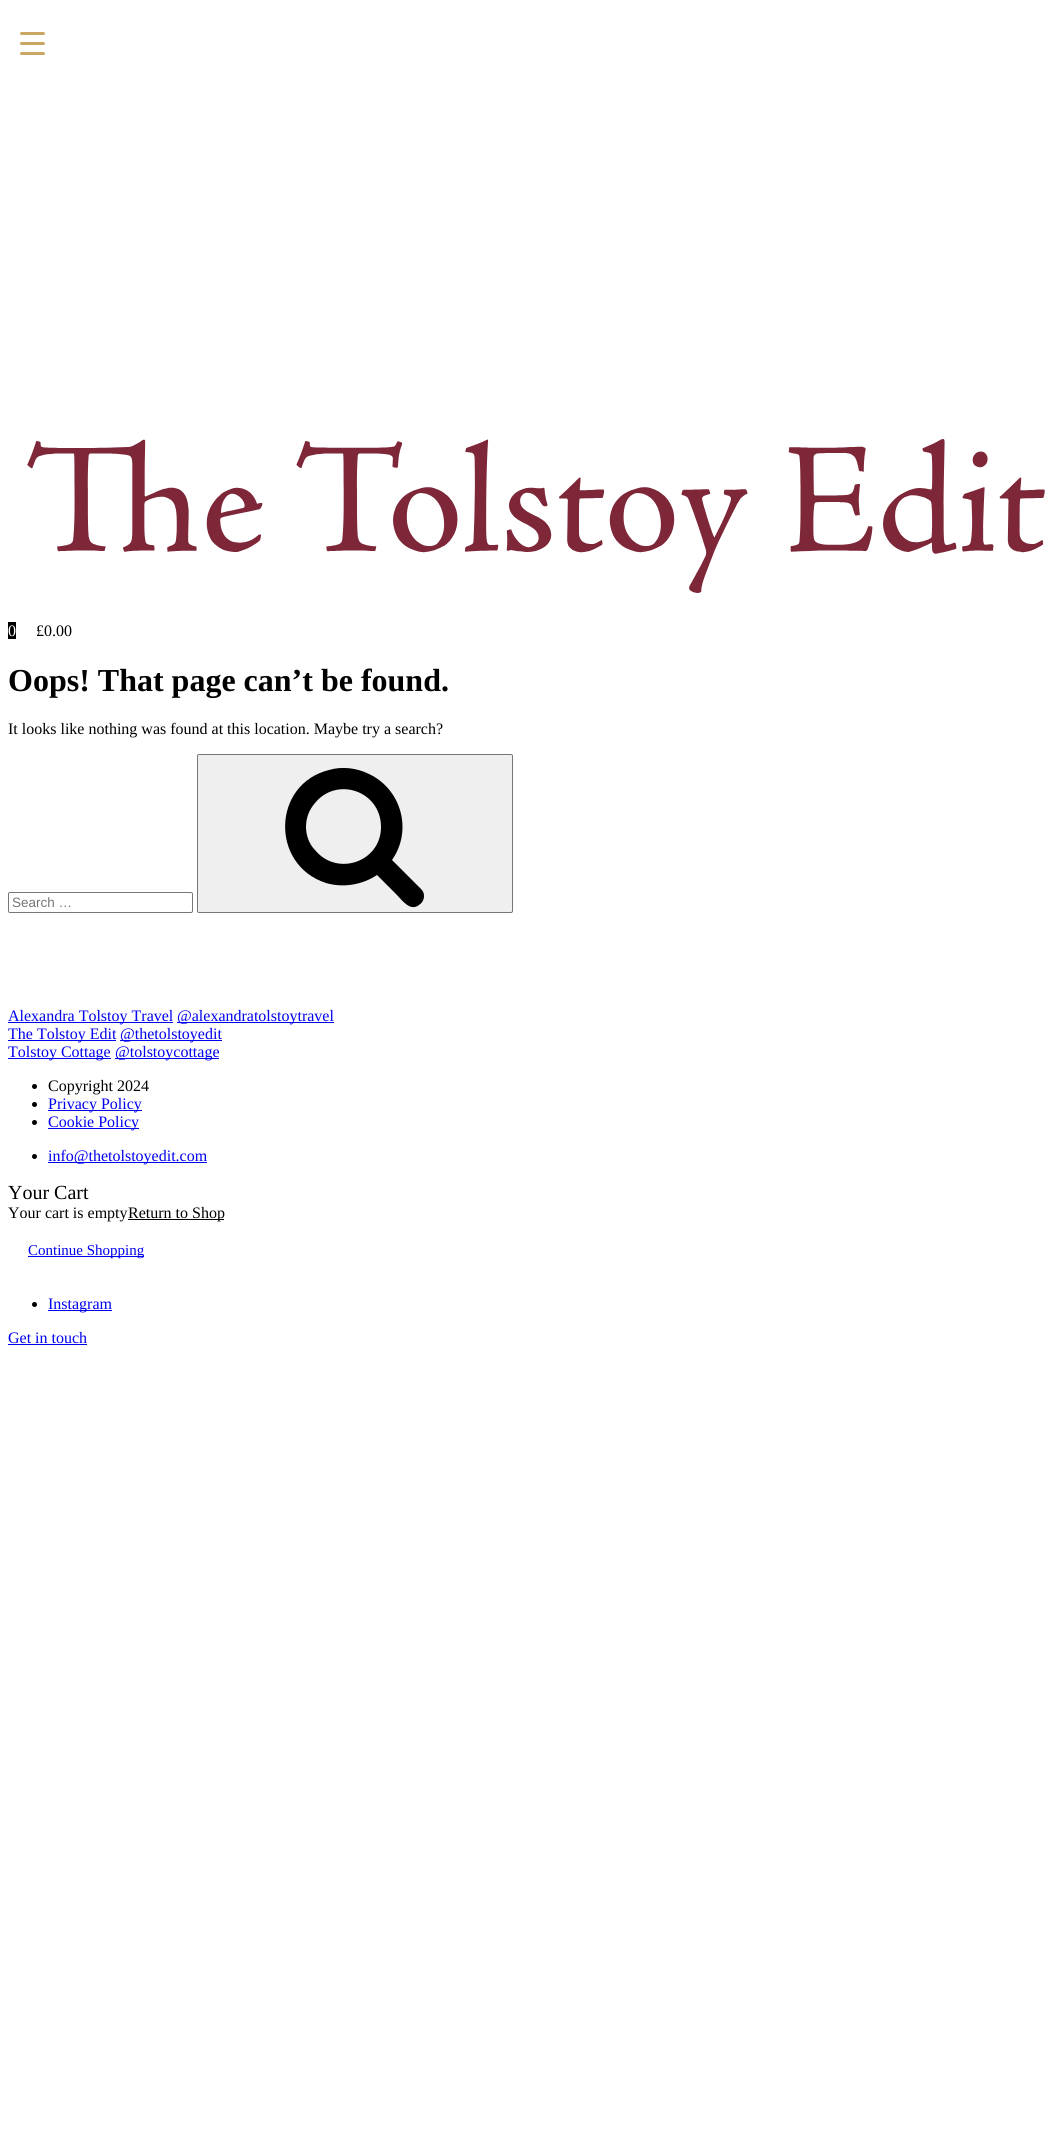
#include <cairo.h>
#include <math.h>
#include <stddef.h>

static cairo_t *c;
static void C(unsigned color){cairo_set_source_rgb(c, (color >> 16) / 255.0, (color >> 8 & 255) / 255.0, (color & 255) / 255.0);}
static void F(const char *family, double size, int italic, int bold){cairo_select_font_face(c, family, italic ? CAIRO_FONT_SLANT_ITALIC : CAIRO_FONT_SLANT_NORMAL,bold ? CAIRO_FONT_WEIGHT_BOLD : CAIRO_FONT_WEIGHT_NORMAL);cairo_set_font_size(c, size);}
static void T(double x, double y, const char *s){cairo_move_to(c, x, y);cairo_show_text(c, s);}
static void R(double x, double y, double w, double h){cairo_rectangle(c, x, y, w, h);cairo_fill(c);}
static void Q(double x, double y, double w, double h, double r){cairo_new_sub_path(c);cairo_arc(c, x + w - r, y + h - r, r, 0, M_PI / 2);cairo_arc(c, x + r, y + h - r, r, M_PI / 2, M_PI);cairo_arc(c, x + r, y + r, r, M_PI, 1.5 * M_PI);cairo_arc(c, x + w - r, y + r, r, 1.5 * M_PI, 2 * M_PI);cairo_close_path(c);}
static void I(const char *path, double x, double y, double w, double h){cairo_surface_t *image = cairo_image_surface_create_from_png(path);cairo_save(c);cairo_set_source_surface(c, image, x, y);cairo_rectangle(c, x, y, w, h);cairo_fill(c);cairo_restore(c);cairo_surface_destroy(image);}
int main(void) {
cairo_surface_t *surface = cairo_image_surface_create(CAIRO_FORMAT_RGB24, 1056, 2151);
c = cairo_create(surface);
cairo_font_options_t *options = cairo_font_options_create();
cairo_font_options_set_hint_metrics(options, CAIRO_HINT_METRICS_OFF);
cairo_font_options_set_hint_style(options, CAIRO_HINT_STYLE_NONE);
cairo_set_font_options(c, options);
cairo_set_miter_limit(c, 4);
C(0xffffff);
cairo_paint(c);
C(0xcba662);
Q(20,42,25,3,1.5);
cairo_fill(c);
Q(20,32,25,3,1.5);
cairo_fill(c);
Q(20,52,25,3,1.5);
cairo_fill(c);
I("1.png",27,439,1018,154);
C(0x000000);
R(8,622,8,17);
F("Liberation Serif",16,0,0);
C(0xffffff);
T(8,636,"0");
C(0x000000);
T(36,636,"£0.00");
F("Liberation Serif",32,0,1);
T(8,691,"Oops! That page can’t be found.");
F("Liberation Serif",16,0,0);
T(8,734,"It looks like nothing was found at this location. Maybe try a search?");
Q(8.5,892.5,184,20,1.5);
C(0x767676);
cairo_set_line_width(c,1);
cairo_stroke(c);
F("Liberation Sans",13.5,0,0);
C(0x757575);
T(12,907,"Search …");
C(0xefefef);
Q(197.5,754.5,315,158,1.5);
cairo_fill_preserve(c);
C(0x767676);
cairo_stroke(c);
C(0x000000);
cairo_new_path(c);
cairo_move_to(c,381,827);
cairo_curve_to(c,381,791,337,776,315,803);
cairo_curve_to(c,309,810,306,818,306,827);
cairo_curve_to(c,306,835,309,844,315,850);
cairo_curve_to(c,337,877,381,862,381,827);
cairo_close_path(c);
cairo_move_to(c,424,896);
cairo_curve_to(c,424,900,422,903,419,905);
cairo_curve_to(c,410,912,402,900,396,894);
cairo_line_to(c,377,875);
cairo_curve_to(c,362,885,343,888,326,883);
cairo_curve_to(c,270,865,272,784,329,770);
cairo_curve_to(c,342,766,357,768,369,774);
cairo_curve_to(c,401,789,413,830,392,860);
cairo_line_to(c,421,889);
cairo_curve_to(c,423,891,424,893,424,896);
cairo_close_path(c);
cairo_fill(c);
C(0x0000ee);
R(8,1022,165,1);
F("Liberation Serif",16,0,0);
T(8,1021,"Alexandra Tolstoy Travel");
R(177,1022,157,1);
T(177,1021,"@alexandratolstoytravel");
R(8,1040,108,1);
T(8,1039,"The Tolstoy Edit");
R(120,1040,102,1);
T(120,1039,"@thetolstoyedit");
R(8,1058,103,1);
T(8,1057,"Tolstoy Cottage");
R(115,1058,104,1);
T(115,1057,"@tolstoycottage");
C(0x000000);
cairo_new_path(c);
cairo_arc(c,34.5,1086.5,2.5,0,2 * M_PI);
cairo_fill(c);
T(48,1091,"Copyright 2024");
cairo_new_path(c);
cairo_arc(c,34.5,1104.5,2.5,0,2 * M_PI);
cairo_fill(c);
C(0x0000ee);
R(48,1110,94,1);
T(48,1109,"Privacy Policy");
C(0x000000);
cairo_new_path(c);
cairo_arc(c,34.5,1122.5,2.5,0,2 * M_PI);
cairo_fill(c);
C(0x0000ee);
R(48,1128,91,1);
T(48,1127,"Cookie Policy");
C(0x000000);
cairo_new_path(c);
cairo_arc(c,34.5,1156.5,2.5,0,2 * M_PI);
cairo_fill(c);
C(0x0000ee);
R(48,1162,159,1);
T(48,1161,"info@thetolstoyedit.com");
F("Liberation Serif",20,0,0);
C(0x000000);
T(8,1199,"Your Cart");
F("Liberation Serif",16,0,0);
T(8,1218,"Your cart is empty");
R(128,1219,96,1);
T(128,1218,"Return to Shop");
C(0x0000ee);
R(28,1256,116,1);
F("Liberation Serif",15,0,0);
T(28,1255,"Continue Shopping");
C(0x000000);
cairo_new_path(c);
cairo_arc(c,34.5,1304.5,2.5,0,2 * M_PI);
cairo_fill(c);
C(0x0000ee);
R(48,1310,64,1);
F("Liberation Serif",16,0,0);
T(48,1309,"Instagram");
T(8,1343,"Get in touch");
R(8,1344,79,1);
cairo_surface_write_to_png(surface, "o.png");
cairo_font_options_destroy(options);
cairo_destroy(c);
cairo_surface_destroy(surface);
return 0;
}
